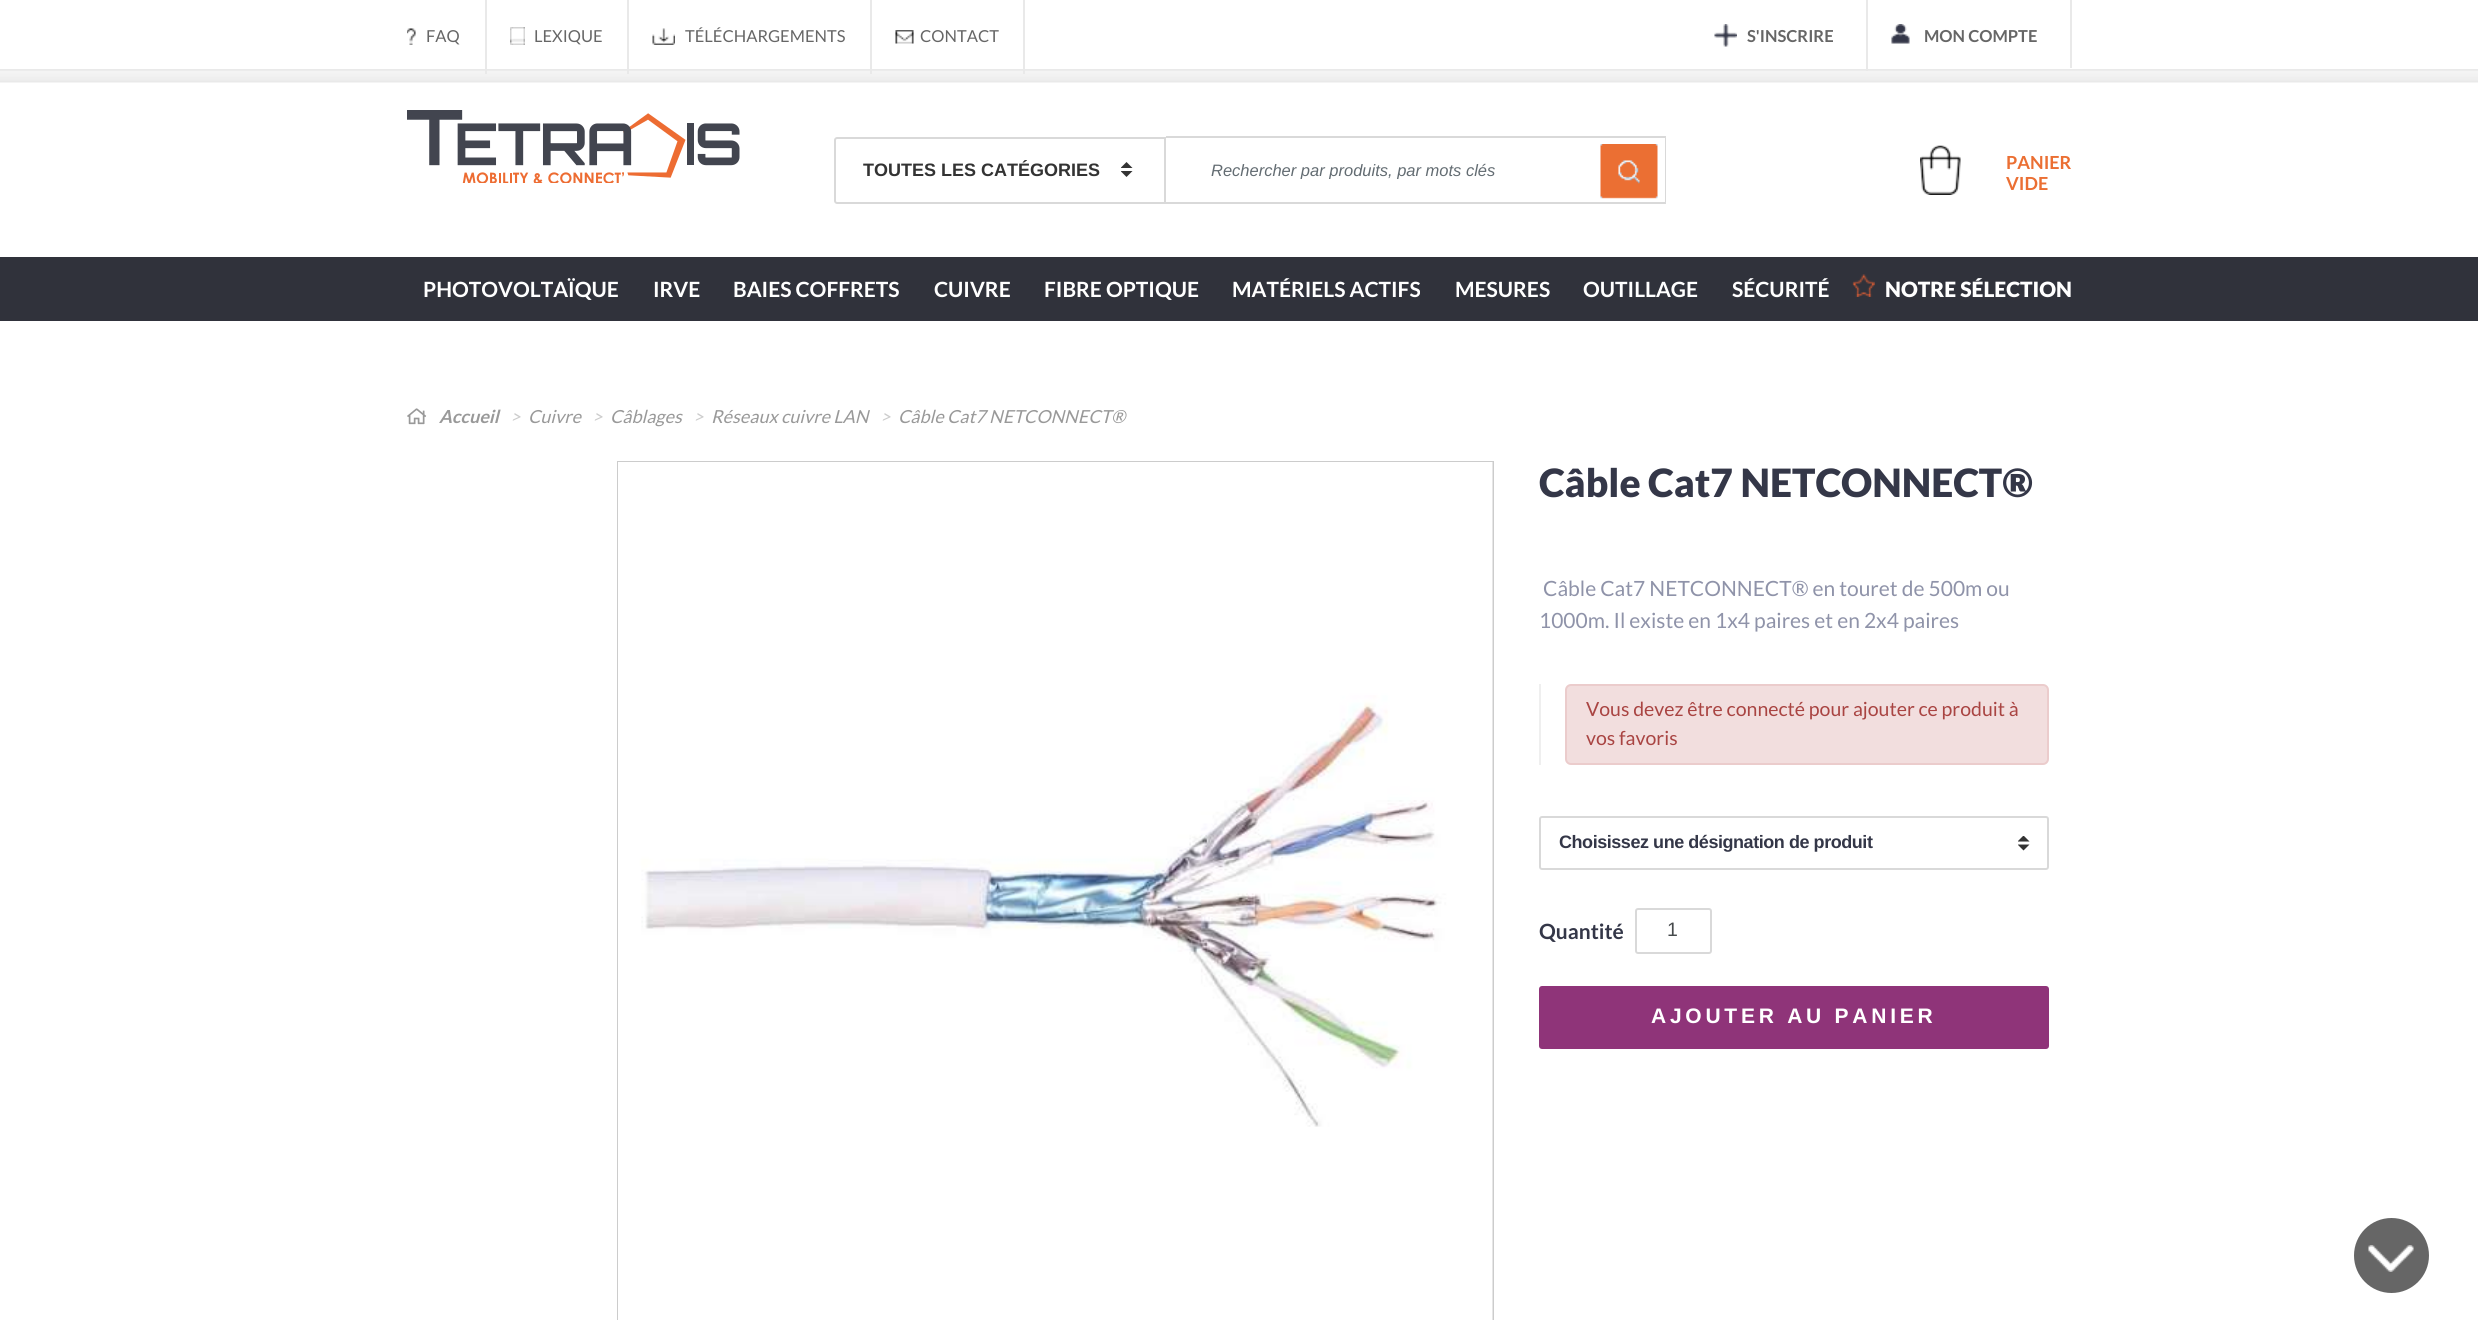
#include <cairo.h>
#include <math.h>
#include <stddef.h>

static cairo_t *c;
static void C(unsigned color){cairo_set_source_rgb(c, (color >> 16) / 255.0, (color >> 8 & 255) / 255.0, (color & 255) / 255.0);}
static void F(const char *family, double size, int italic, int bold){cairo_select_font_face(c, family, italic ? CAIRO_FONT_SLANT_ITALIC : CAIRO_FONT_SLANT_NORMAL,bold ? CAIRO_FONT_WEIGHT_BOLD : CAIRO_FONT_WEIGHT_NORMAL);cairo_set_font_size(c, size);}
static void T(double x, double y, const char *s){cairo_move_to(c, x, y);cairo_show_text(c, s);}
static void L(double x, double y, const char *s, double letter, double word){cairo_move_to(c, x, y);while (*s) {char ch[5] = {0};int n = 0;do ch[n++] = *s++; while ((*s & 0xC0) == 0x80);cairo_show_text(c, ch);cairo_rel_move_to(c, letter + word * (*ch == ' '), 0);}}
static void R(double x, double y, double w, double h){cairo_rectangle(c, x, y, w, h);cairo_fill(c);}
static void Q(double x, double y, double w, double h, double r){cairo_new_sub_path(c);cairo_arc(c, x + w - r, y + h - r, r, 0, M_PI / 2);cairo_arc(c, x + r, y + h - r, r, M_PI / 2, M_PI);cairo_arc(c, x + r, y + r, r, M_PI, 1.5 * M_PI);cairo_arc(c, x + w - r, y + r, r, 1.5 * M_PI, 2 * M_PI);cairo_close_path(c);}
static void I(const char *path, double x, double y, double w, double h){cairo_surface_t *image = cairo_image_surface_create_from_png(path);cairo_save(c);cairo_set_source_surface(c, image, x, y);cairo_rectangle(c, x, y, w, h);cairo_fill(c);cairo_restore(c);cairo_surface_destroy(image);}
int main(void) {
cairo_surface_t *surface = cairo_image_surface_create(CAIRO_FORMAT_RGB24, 2478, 1320);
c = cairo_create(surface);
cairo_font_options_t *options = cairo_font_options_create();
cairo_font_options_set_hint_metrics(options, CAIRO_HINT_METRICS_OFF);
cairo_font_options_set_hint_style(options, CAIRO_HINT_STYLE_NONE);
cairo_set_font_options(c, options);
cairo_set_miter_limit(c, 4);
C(0xffffff);
cairo_paint(c);
I("1.png",0,69,2478,14);
C(0xe9e9e9);
R(485,0,2,74);
I("2.png",407,28,9,17);
F("Lato",16.5,0,0);
C(0x666666);
T(426,42,"FAQ");
C(0xe9e9e9);
R(627,0,2,74);
I("3.png",510,27,15,18);
C(0x666666);
T(534,42,"LEXIQUE");
C(0xe9e9e9);
R(870,0,2,74);
I("4.png",652,28,23,17);
C(0x666666);
T(685,42,"TÉLÉCHARGEMENTS");
C(0xe9e9e9);
R(1023,0,2,74);
I("5.png",895,30,19,14);
C(0x666666);
T(920,42,"CONTACT");
C(0xe9e9e9);
R(1866,0,2,71);
I("6.png",1714,24,23,23);
F("Lato",16.5,0,1);
C(0x666666);
T(1747,42,"S'INSCRIRE");
C(0xe9e9e9);
R(2070,0,2,68);
I("7.png",1891,24,19,20);
C(0x666666);
T(1924,42,"MON COMPTE");
I("8.png",407,110,333,73);
I("9.png",1121,162,12,15);
cairo_new_path(c);
cairo_move_to(c,837,138);
cairo_line_to(c,1165,138);
cairo_line_to(c,1165,203);
cairo_line_to(c,837,203);
cairo_curve_to(c,836,203,835,202,835,201);
cairo_line_to(c,835,140);
cairo_curve_to(c,835,139,836,138,837,138);
cairo_close_path(c);
C(0xd9d9d9);
cairo_stroke(c);
cairo_save(c);
cairo_rectangle(c,863,159,238,23);
cairo_clip(c);
F("Liberation Sans",18,0,1);
C(0x333333);
T(863,176,"TOUTES LES CATÉGORIES");
cairo_restore(c);
cairo_new_path(c);
cairo_move_to(c,1166,136);
cairo_line_to(c,1666,136);
cairo_line_to(c,1665,138);
cairo_line_to(c,1166,138);
cairo_close_path(c);
cairo_fill(c);
cairo_set_source_rgba(c,0,0,0,0.15);
cairo_new_path(c);
cairo_move_to(c,1666,136);
cairo_line_to(c,1666,204);
cairo_line_to(c,1665,202);
cairo_line_to(c,1665,138);
cairo_close_path(c);
cairo_fill(c);
cairo_new_path(c);
cairo_move_to(c,1666,204);
cairo_line_to(c,1166,204);
cairo_line_to(c,1166,202);
cairo_line_to(c,1665,202);
cairo_close_path(c);
cairo_fill(c);
cairo_save(c);
cairo_rectangle(c,1211,161,373,18);
cairo_clip(c);
F("Liberation Sans",16.5,1,0);
C(0x636c72);
T(1211,176,"Rechercher par produits, par mots clés");
cairo_restore(c);
I("10.png",1600,144,58,55);
I("11.png",1920,145,41,50);
F("Lato",18,0,1);
C(0xeb6f33);
T(2006,169,"PANIER");
T(2006,190,"VIDE");
C(0x30323b);
R(0,257,2478,64);
F("Lato",21,0,1);
C(0xffffff);
T(423,297,"PHOTOVOLTAÏQUE");
T(653,297,"IRVE");
T(733,297,"BAIES COFFRETS");
T(934,297,"CUIVRE");
T(1044,297,"FIBRE OPTIQUE");
T(1232,297,"MATÉRIELS ACTIFS");
T(1455,297,"MESURES");
T(1583,297,"OUTILLAGE");
T(1732,297,"SÉCURITÉ");
I("12.png",1852,274,23,23);
F("Lato Black",21,0,0);
T(1885,297,"NOTRE SÉLECTION");
I("13.png",407,408,20,17);
F("Lato",18,1,1);
C(0x999999);
T(439,423,"Accueil");
F("Lato",18,1,0);
C(0xcccccc);
T(510,423,">");
C(0x999999);
T(528,423,"Cuivre");
C(0xcccccc);
T(592,423,">");
C(0x999999);
T(610,423,"Câblages");
C(0xcccccc);
T(693,423,">");
C(0x999999);
T(711,423,"Réseaux cuivre LAN");
C(0xcccccc);
T(880,423,">");
C(0x999999);
T(898,423,"Câble Cat7 NETCONNECT®");
cairo_rectangle(c,618,462,875,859);
C(0xcccccc);
cairo_stroke(c);
I("14.png",618,462,875,858);
F("Lato Black",39,0,0);
C(0x343748);
T(1539,497,"Câble Cat7 NETCONNECT®");
F("Lato",21,0,0);
C(0x8f93a9);
T(1543,596,"Câble Cat7 NETCONNECT® en touret de 500m ou");
T(1539,628,"1000m. Il existe en 1x4 paires et en 2x4 paires");
C(0xefefef);
R(1539,684,2,81);
C(0xf2dede);
Q(1566,685,482,79,5);
cairo_fill_preserve(c);
C(0xebcccc);
cairo_stroke(c);
F("Lato",19.5,0,0);
C(0xa94442);
T(1586,716,"Vous devez être connecté pour ajouter ce produit à");
T(1586,745,"vos favoris");
I("15.png",2018,836,12,15);
Q(1540,817,508,52,2);
C(0xd9d9d9);
cairo_stroke(c);
F("Liberation Sans",18,0,1);
C(0x343748);
L(1559,848,"Choisissez une désignation de produit",-.45,0);
F("Lato",21,0,1);
T(1539,939,"Quantité");
Q(1636,909,75,44,2);
C(0xd9d9d9);
cairo_stroke(c);
F("Liberation Sans",19.5,0,0);
C(0x464a4c);
T(1667,936,"1");
C(0x8f3479);
Q(1540,987,508,61,2);
cairo_fill_preserve(c);
cairo_stroke(c);
F("Liberation Sans",21,0,1);
C(0xffffff);
L(1651,1023,"AJOUTER AU PANIER",3.75,0);
C(0x666666);
cairo_new_path(c);
cairo_arc(c,2391.5,1255.5,37.5,0,2 * M_PI);
cairo_fill(c);
I("16.png",2368,1245,46,27);
cairo_surface_write_to_png(surface, "o.png");
cairo_font_options_destroy(options);
cairo_destroy(c);
cairo_surface_destroy(surface);
return 0;
}
